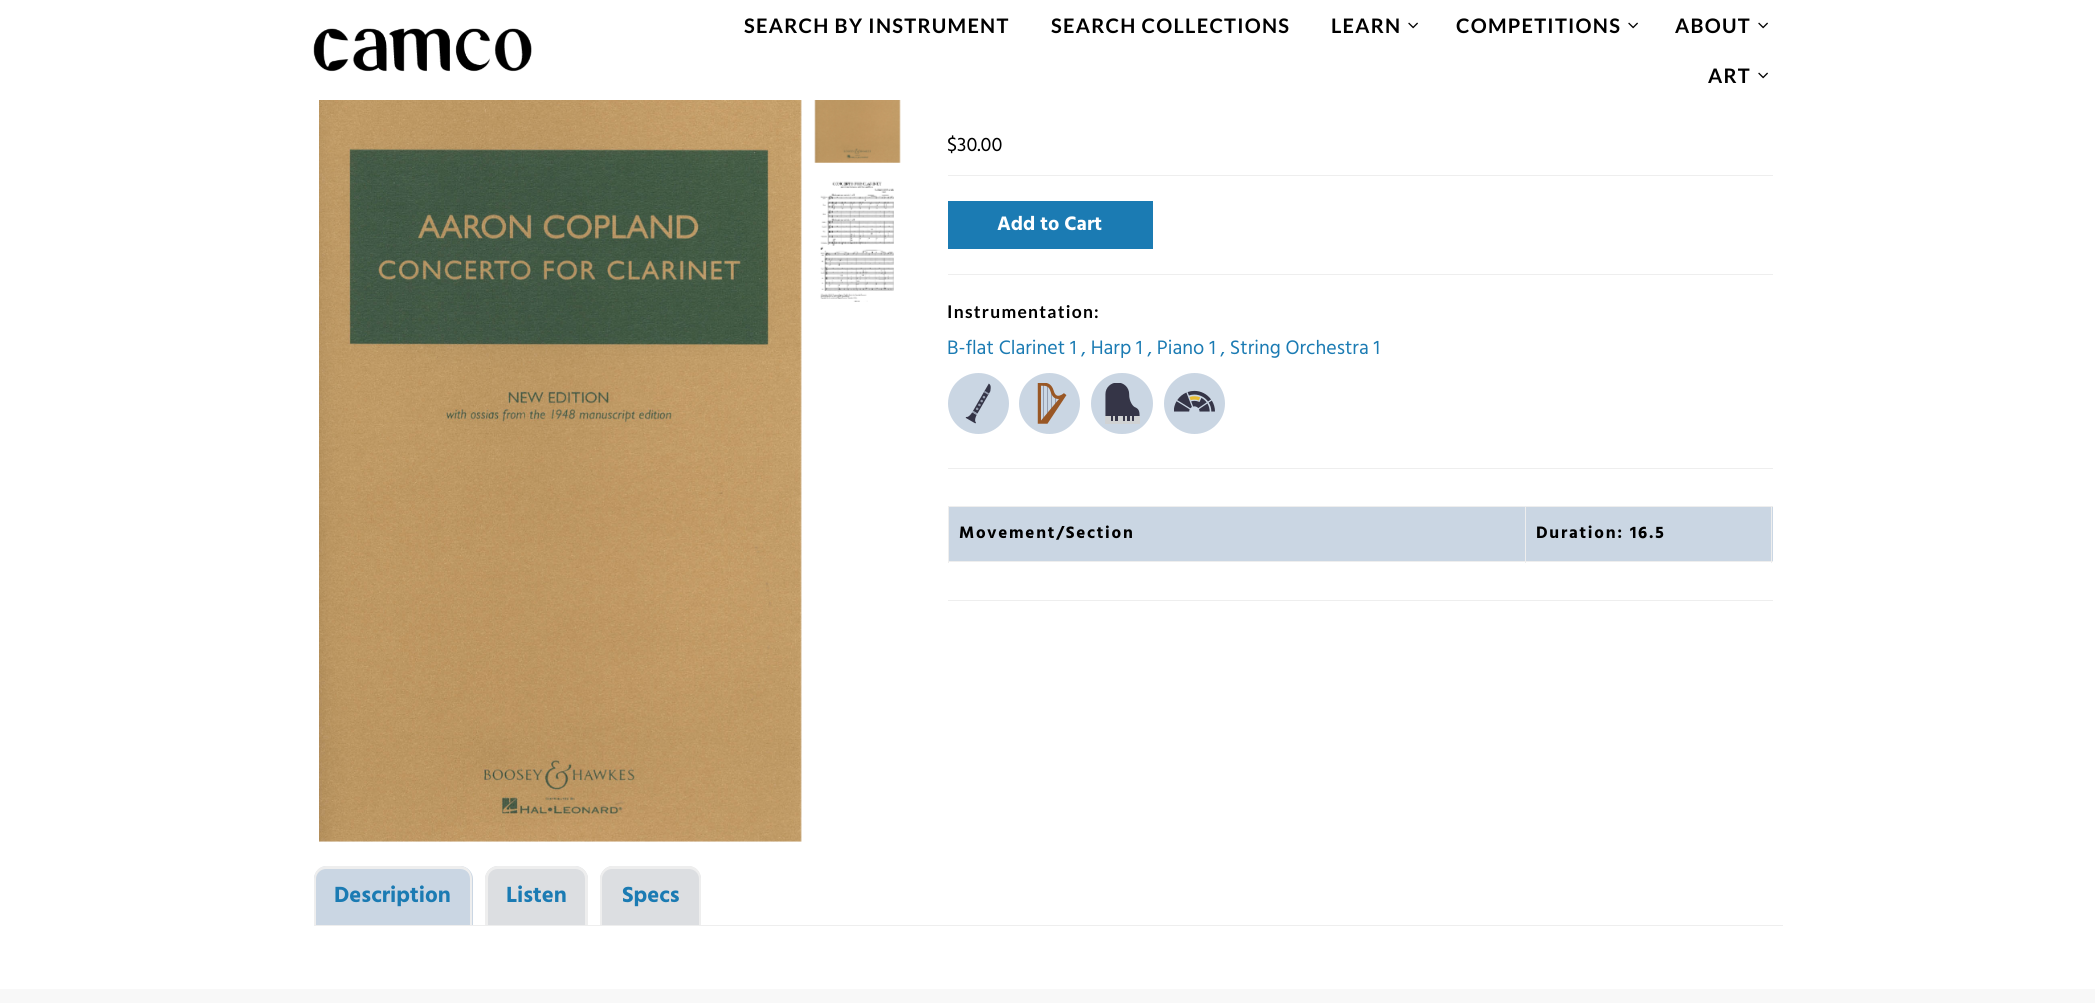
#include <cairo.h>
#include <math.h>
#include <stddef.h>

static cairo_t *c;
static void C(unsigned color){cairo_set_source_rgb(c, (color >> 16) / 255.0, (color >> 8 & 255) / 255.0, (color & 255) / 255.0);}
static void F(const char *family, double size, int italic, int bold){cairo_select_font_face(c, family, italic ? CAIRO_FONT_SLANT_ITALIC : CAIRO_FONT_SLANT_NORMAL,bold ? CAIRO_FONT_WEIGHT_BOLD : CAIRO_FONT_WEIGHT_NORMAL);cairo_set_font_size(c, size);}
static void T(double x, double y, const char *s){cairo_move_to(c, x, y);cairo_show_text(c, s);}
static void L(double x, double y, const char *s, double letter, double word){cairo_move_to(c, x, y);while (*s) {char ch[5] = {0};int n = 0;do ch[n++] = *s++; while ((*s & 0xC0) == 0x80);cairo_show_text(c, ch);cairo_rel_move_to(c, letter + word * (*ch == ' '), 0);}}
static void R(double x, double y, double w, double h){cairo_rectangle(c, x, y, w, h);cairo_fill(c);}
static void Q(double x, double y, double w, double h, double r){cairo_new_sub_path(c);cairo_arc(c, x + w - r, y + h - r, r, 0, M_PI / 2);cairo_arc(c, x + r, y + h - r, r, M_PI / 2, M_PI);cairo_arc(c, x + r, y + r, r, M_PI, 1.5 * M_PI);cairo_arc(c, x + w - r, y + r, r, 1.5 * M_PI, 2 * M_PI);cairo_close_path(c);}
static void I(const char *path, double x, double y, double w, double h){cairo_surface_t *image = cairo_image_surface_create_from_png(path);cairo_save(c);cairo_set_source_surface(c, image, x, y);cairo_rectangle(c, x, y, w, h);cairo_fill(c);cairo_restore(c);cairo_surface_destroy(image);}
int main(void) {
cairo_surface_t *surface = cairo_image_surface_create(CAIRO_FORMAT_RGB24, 2095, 1003);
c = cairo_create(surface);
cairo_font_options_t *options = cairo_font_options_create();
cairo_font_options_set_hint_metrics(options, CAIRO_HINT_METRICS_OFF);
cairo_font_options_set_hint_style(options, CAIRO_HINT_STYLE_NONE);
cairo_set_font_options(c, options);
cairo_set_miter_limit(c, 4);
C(0xffffff);
cairo_paint(c);
I("1.png",313,28,219,44);
F("Lato",20,0,1);
C(0x000000);
L(744,33,"SEARCH BY INSTRUMENT",1.25,0);
L(1051,33,"SEARCH COLLECTIONS",1.25,0);
L(1331,33,"LEARN",1.25,0);
I("2.png",1408,22,10,7);
L(1456,33,"COMPETITIONS",1.25,0);
I("2.png",1628,22,10,7);
L(1675,33,"ABOUT",1.25,0);
I("2.png",1758,22,10,7);
L(1708,83,"ART",1.25,0);
I("2.png",1758,72,10,7);
I("3.png",319,100,483,742);
I("4.png",814,100,87,63);
I("5.png",820,181,74,121);
F("Hind",20,0,0);
T(947,151,"$30.00");
C(0xeeeeee);
R(948,175,825,1);
R(948,274,825,1);
C(0x1b7bb3);
R(948,201,205,48);
F("Hind",20,0,1);
C(0xffffff);
T(997,230,"Add to Cart");
C(0xeeeeee);
R(948,468,825,1);
F("Lato",17.5,0,1);
C(0x000000);
L(947,318,"Instrumentation:",1.25,0);
F("Hind",20,0,0);
C(0x1b7bb3);
T(947,354,"B-flat Clarinet 1 , Harp 1 , Piano 1 , String Orchestra 1");
C(0xcad6e3);
cairo_new_path(c);
cairo_arc(c,978.5,403.5,30.5,0,2 * M_PI);
cairo_fill(c);
I("6.png",965,383,26,41);
cairo_arc(c,1049.5,403.5,30.5,0,2 * M_PI);
cairo_fill(c);
I("7.png",1037,383,30,41);
Q(1091,373,62,61,30.5);
cairo_fill(c);
I("8.png",1105,383,35,41);
cairo_arc(c,1194.5,403.5,30.5,0,2 * M_PI);
cairo_fill(c);
I("9.png",1174,390,41,22);
C(0xeeeeee);
R(948,600,825,1);
C(0xcad6e3);
R(949,507,576,54);
C(0xeeeeee);
R(1525,506,248,1);
C(0xcad6e3);
R(1526,507,247,54);
C(0xeeeeee);
R(1771,506,1,57);
R(1525,561,248,1);
R(1525,506,1,57);
R(948,506,578,1);
R(948,561,578,1);
R(948,506,1,57);
F("Hind",17,0,1);
C(0x000000);
L(959,538,"Movement/Section",1.75,0);
L(1536,538,"Duration: 16.5",1.75,0);
C(0xeeeeee);
R(314,925,1469,1);
C(0xcad6e3);
cairo_new_path(c);
cairo_move_to(c,327,866);
cairo_line_to(c,460,866);
cairo_curve_to(c,467,866,473,872,473,879);
cairo_line_to(c,473,925);
cairo_line_to(c,314,925);
cairo_line_to(c,314,879);
cairo_curve_to(c,314,872,320,866,327,866);
cairo_close_path(c);
cairo_fill(c);
C(0xeeeeee);
cairo_set_fill_rule(c,CAIRO_FILL_RULE_EVEN_ODD);
cairo_new_path(c);
cairo_move_to(c,326,866);
cairo_line_to(c,460,866);
cairo_curve_to(c,467,866,472,872,472,879);
cairo_line_to(c,472,925);
cairo_line_to(c,314,925);
cairo_line_to(c,314,879);
cairo_curve_to(c,314,872,319,866,326,866);
cairo_close_path(c);
cairo_move_to(c,326,869);
cairo_line_to(c,460,869);
cairo_curve_to(c,466,869,470,873,470,879);
cairo_line_to(c,470,925);
cairo_line_to(c,316,925);
cairo_line_to(c,316,879);
cairo_curve_to(c,316,873,321,869,326,869);
cairo_close_path(c);
cairo_fill(c);
F("Hind",22.5,0,1);
C(0x1b7bb3);
T(334,902,"Description");
C(0xdcdee1);
cairo_new_path(c);
cairo_move_to(c,498,866);
cairo_line_to(c,575,866);
cairo_curve_to(c,582,866,588,872,588,879);
cairo_line_to(c,588,925);
cairo_line_to(c,485,925);
cairo_line_to(c,485,879);
cairo_curve_to(c,485,872,491,866,498,866);
cairo_close_path(c);
cairo_fill(c);
C(0xeeeeee);
cairo_new_path(c);
cairo_move_to(c,498,866);
cairo_line_to(c,575,866);
cairo_curve_to(c,582,866,588,872,588,879);
cairo_line_to(c,588,925);
cairo_line_to(c,485,925);
cairo_line_to(c,485,879);
cairo_curve_to(c,485,872,491,866,498,866);
cairo_close_path(c);
cairo_move_to(c,498,869);
cairo_line_to(c,575,869);
cairo_curve_to(c,581,869,585,873,585,879);
cairo_line_to(c,585,925);
cairo_line_to(c,488,925);
cairo_line_to(c,488,879);
cairo_curve_to(c,488,873,492,869,498,869);
cairo_close_path(c);
cairo_fill(c);
C(0x1b7bb3);
T(506,902,"Listen");
C(0xdcdee1);
cairo_new_path(c);
cairo_move_to(c,613,866);
cairo_line_to(c,688,866);
cairo_curve_to(c,695,866,701,872,701,879);
cairo_line_to(c,701,925);
cairo_line_to(c,600,925);
cairo_line_to(c,600,879);
cairo_curve_to(c,600,872,606,866,613,866);
cairo_close_path(c);
cairo_fill(c);
C(0xeeeeee);
cairo_new_path(c);
cairo_move_to(c,612,866);
cairo_line_to(c,689,866);
cairo_curve_to(c,696,866,701,872,701,879);
cairo_line_to(c,701,925);
cairo_line_to(c,600,925);
cairo_line_to(c,600,879);
cairo_curve_to(c,600,872,606,866,612,866);
cairo_close_path(c);
cairo_move_to(c,612,869);
cairo_line_to(c,689,869);
cairo_curve_to(c,694,869,699,873,699,879);
cairo_line_to(c,699,925);
cairo_line_to(c,602,925);
cairo_line_to(c,602,879);
cairo_curve_to(c,602,873,607,869,612,869);
cairo_close_path(c);
cairo_fill(c);
C(0x1b7bb3);
T(622,902,"Specs");
C(0xf8f8f8);
R(0,989,2095,14);
cairo_surface_write_to_png(surface, "o.png");
cairo_font_options_destroy(options);
cairo_destroy(c);
cairo_surface_destroy(surface);
return 0;
}
